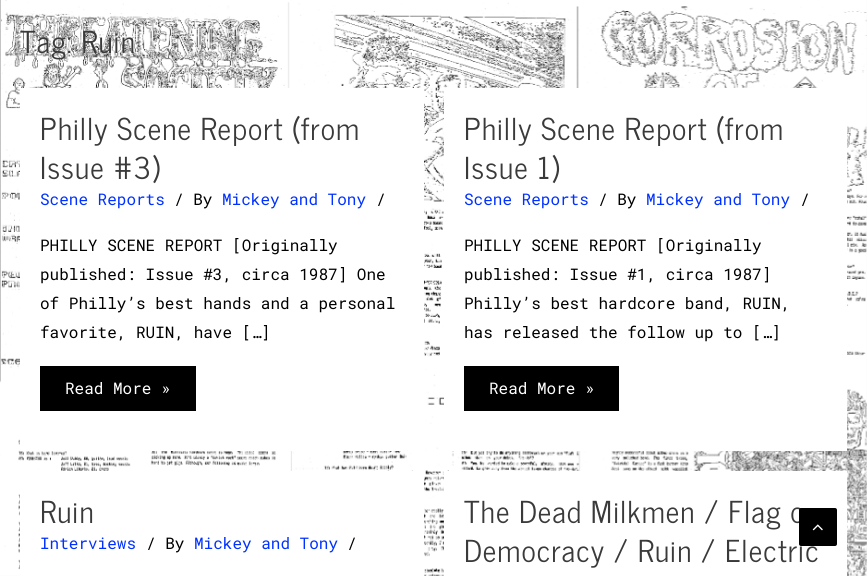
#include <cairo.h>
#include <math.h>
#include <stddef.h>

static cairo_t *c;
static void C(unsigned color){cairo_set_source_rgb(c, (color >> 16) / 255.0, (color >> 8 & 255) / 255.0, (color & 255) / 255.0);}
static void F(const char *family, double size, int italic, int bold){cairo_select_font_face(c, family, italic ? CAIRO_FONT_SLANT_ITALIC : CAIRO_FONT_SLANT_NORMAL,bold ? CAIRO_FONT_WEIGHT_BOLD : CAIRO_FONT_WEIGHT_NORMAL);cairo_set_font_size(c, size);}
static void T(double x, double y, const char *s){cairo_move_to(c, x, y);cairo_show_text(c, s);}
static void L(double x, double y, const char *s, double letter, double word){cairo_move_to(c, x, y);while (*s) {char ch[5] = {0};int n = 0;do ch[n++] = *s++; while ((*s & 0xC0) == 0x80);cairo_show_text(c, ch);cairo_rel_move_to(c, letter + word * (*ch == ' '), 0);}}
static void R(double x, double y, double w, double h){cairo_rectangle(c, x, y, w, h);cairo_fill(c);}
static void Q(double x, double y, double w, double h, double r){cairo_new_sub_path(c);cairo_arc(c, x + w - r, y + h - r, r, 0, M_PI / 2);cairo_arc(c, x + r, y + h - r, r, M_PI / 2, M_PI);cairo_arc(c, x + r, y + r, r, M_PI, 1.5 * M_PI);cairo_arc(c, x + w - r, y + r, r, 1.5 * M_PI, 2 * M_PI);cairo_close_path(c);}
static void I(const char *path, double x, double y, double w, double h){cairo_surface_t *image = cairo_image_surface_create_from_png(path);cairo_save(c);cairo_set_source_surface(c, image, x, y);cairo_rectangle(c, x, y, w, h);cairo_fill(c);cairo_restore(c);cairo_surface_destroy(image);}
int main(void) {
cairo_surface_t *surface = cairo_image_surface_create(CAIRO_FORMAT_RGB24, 867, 576);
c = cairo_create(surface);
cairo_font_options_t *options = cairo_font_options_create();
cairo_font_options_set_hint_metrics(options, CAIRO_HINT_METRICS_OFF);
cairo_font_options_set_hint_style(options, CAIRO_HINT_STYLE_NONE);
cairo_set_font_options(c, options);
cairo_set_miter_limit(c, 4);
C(0xf5f5f5);
cairo_paint(c);
I("1.png",0,0,867,576);
F("News Cycle",30,0,0);
C(0x3a3a3a);
L(20,53,"Tag: Ruin",1,0);
C(0xffffff);
R(20,88,404,363);
C(0x3a3a3a);
L(40,140,"Philly Scene Report (from",1,0);
L(40,179,"Issue #3)",1,0);
F("Roboto Mono",16,0,0);
C(0x0031ff);
T(40,205,"Scene Reports");
C(0x000000);
T(174,205,"/ By");
C(0x0031ff);
T(222,205,"Mickey and Tony");
C(0x000000);
T(376,205,"/");
T(40,251,"PHILLY SCENE REPORT [Originally");
T(40,280,"published: Issue #3, circa 1987] One");
T(40,309,"of Philly’s best hands and a personal");
T(40,338,"favorite, RUIN, have […]");
R(40,366,156,45);
C(0xffffff);
T(65,394,"Read More »");
R(444,88,403,363);
F("News Cycle",30,0,0);
C(0x3a3a3a);
L(464,140,"Philly Scene Report (from",1,0);
L(464,179,"Issue 1)",1,0);
F("Roboto Mono",16,0,0);
C(0x0031ff);
T(464,205,"Scene Reports");
C(0x000000);
T(598,205,"/ By");
C(0x0031ff);
T(646,205,"Mickey and Tony");
C(0x000000);
T(800,205,"/");
T(464,251,"PHILLY SCENE REPORT [Originally");
T(464,280,"published: Issue #1, circa 1987]");
T(464,309,"Philly’s best hardcore band, RUIN,");
T(464,338,"has released the follow up to […]");
R(464,366,155,45);
C(0xffffff);
T(489,394,"Read More »");
R(20,471,404,105);
F("News Cycle",30,0,0);
C(0x3a3a3a);
L(40,523,"Ruin",1,0);
F("Roboto Mono",16,0,0);
C(0x0031ff);
T(40,549,"Interviews");
C(0x000000);
T(146,549,"/ By");
C(0x0031ff);
T(194,549,"Mickey and Tony");
C(0x000000);
T(347,549,"/");
C(0xffffff);
R(444,471,403,105);
F("News Cycle",30,0,0);
C(0x3a3a3a);
L(464,523,"The Dead Milkmen / Flag o",1,0);
L(464,562,"Democracy / Ruin / Electric",1,0);
C(0x000000);
Q(799,508,38,38,2);
cairo_fill(c);
I("2.png",812,524,11,7);
cairo_surface_write_to_png(surface, "o.png");
cairo_font_options_destroy(options);
cairo_destroy(c);
cairo_surface_destroy(surface);
return 0;
}
